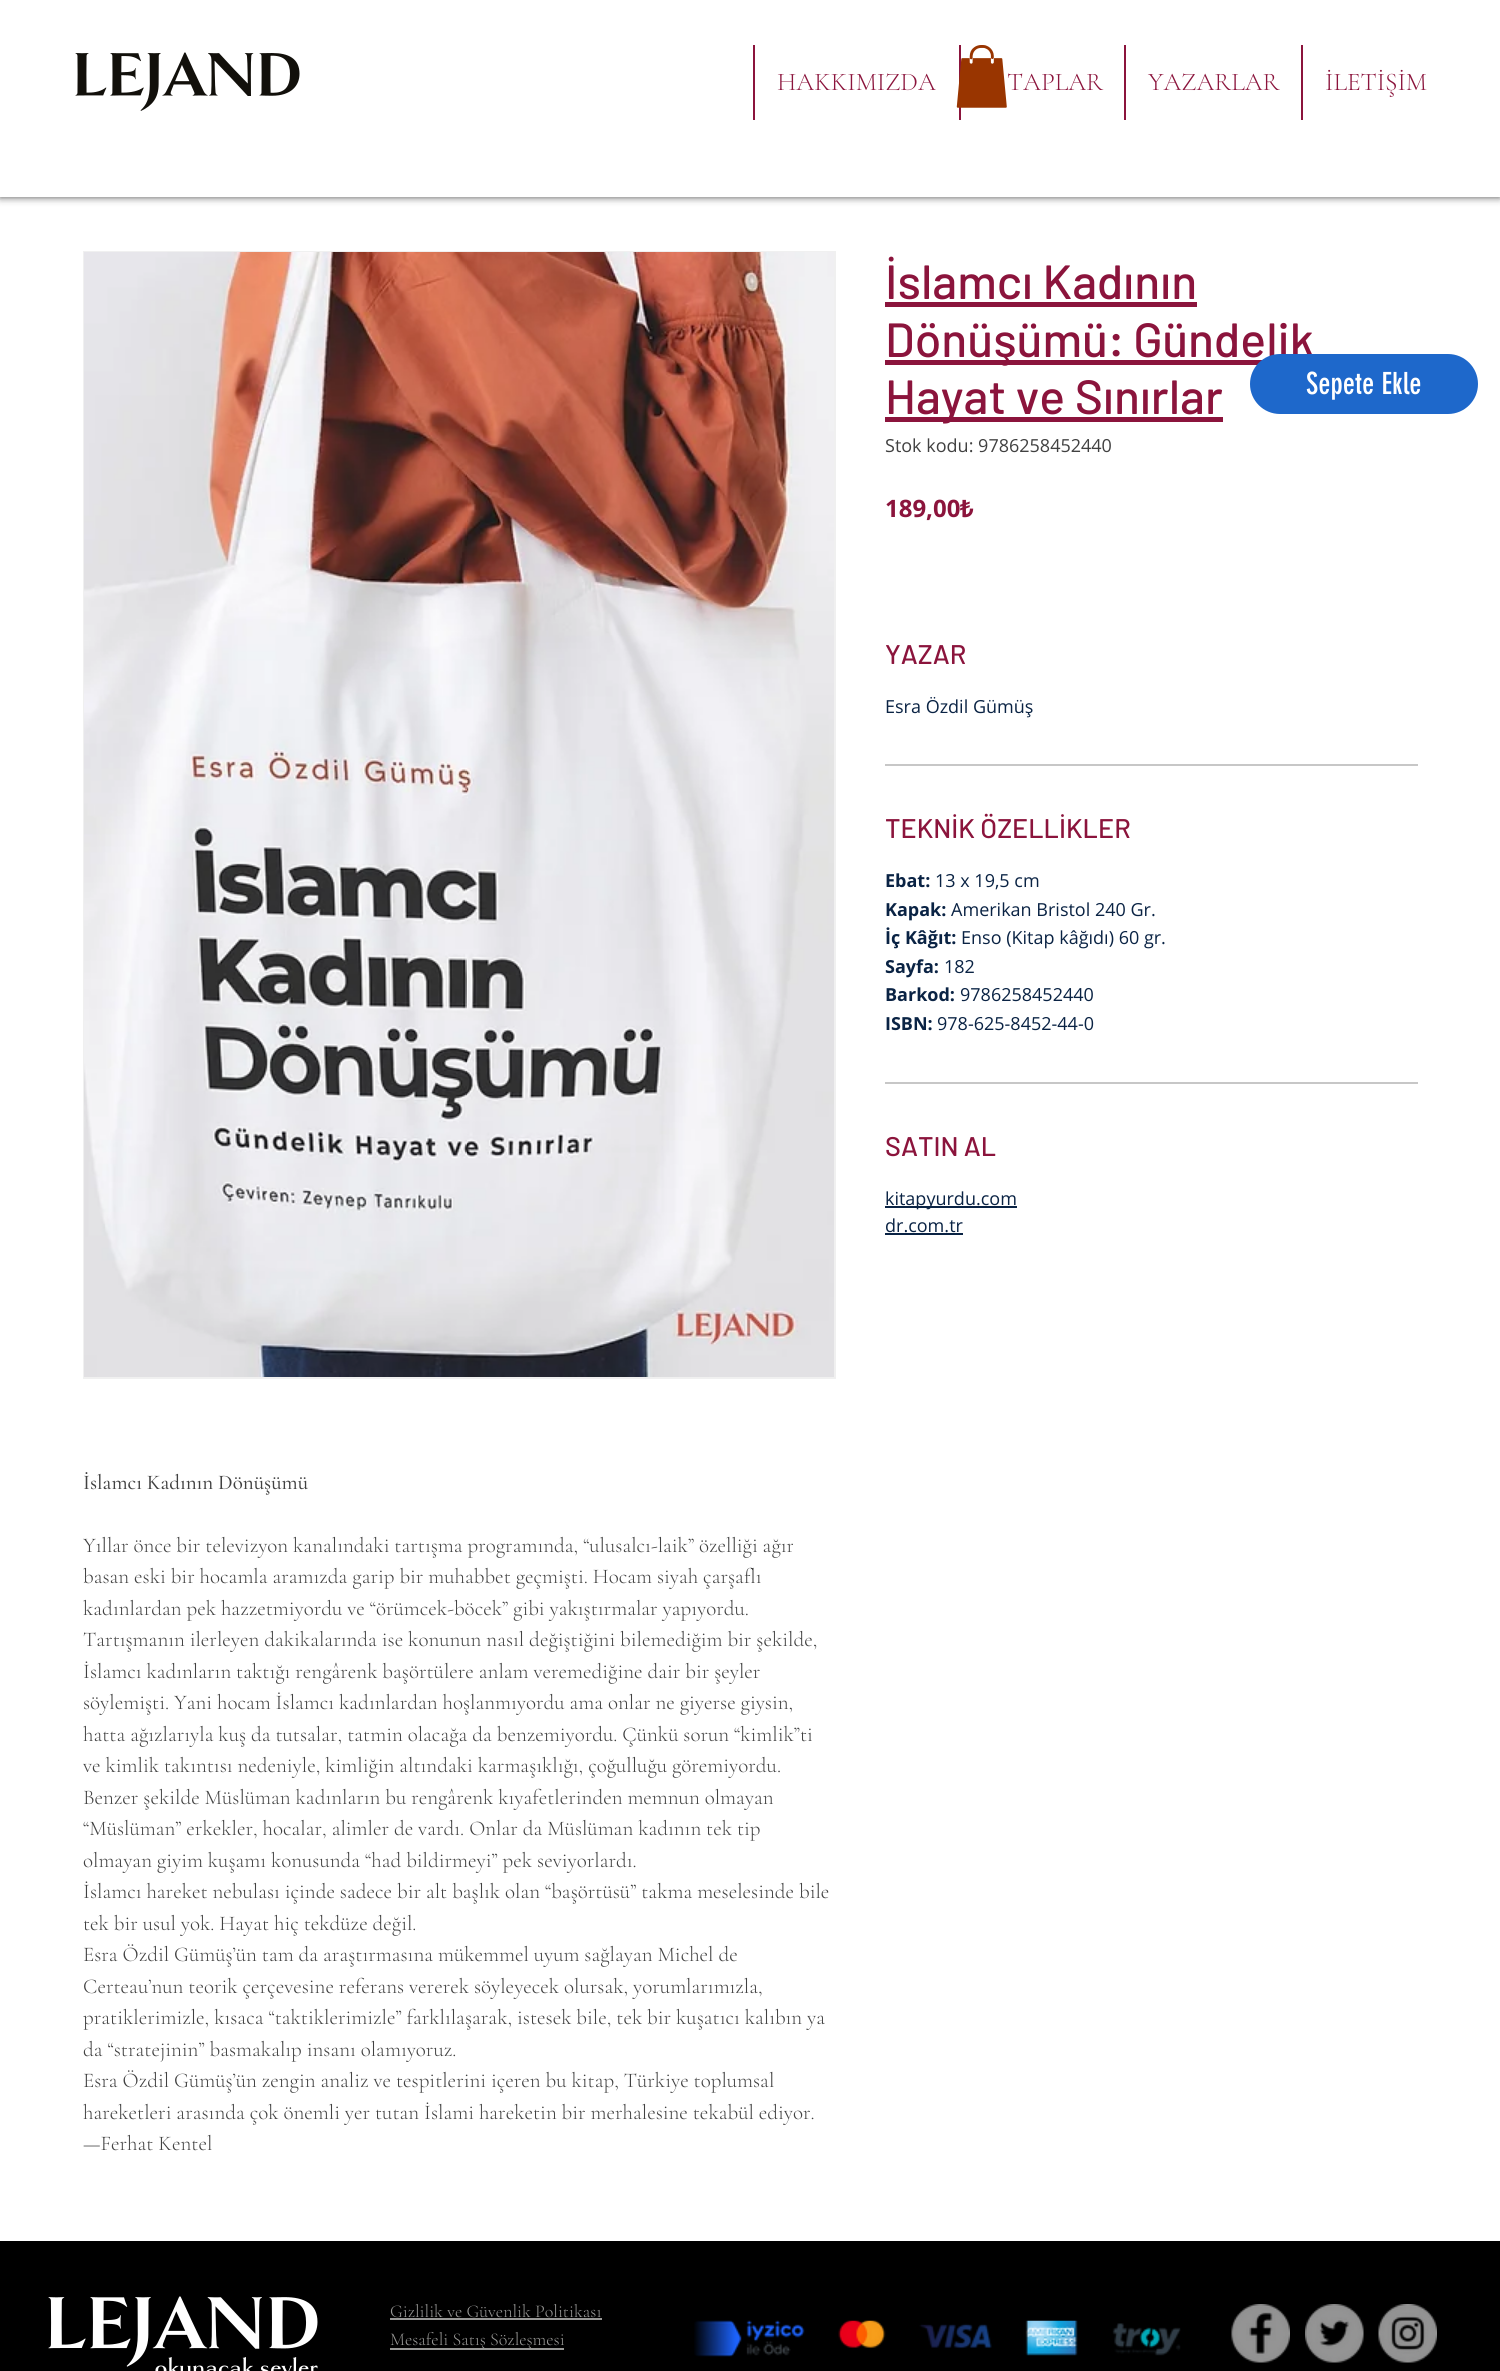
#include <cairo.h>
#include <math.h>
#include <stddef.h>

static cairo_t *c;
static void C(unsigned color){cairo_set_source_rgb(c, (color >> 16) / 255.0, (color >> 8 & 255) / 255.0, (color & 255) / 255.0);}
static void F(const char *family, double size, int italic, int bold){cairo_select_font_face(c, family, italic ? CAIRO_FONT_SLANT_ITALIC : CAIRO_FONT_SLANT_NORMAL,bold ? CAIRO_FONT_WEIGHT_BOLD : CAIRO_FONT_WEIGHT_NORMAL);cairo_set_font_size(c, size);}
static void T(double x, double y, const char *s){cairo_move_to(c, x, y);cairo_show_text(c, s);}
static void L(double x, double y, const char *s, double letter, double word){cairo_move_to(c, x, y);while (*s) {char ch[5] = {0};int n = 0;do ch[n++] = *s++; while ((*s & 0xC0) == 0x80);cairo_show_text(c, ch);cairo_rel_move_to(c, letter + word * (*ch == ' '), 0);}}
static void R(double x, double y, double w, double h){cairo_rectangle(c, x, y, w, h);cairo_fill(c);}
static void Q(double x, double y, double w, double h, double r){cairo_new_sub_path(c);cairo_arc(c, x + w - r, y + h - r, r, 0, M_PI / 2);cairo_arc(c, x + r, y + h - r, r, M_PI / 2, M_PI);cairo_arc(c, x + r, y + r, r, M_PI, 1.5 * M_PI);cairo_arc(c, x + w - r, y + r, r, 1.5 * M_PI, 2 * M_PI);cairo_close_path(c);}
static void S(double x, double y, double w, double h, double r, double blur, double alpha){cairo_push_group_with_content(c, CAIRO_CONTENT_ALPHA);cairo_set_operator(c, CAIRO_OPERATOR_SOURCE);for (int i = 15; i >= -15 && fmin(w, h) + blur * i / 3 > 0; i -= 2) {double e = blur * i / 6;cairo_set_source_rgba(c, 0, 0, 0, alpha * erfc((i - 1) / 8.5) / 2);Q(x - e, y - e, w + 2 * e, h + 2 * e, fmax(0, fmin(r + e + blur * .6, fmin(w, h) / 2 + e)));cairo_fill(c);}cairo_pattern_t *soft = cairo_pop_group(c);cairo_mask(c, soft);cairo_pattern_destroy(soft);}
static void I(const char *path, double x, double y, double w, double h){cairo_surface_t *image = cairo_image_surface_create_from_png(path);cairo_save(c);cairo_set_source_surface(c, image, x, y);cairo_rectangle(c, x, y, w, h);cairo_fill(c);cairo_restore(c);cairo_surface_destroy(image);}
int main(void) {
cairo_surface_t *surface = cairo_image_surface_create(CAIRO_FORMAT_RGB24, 1500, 2371);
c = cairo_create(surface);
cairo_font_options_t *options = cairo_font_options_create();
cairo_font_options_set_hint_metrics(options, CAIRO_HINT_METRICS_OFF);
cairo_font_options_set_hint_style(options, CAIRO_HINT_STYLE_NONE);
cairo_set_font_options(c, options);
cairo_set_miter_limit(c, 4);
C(0xffffff);
cairo_paint(c);
C(0x000000);
S(0,0,1500,197,0,4,.7);
C(0xffffff);
R(0,0,1500,197);
I("1.png",75,52,225,59);
C(0x8b143c);
R(959,45,2,75);
I("2.png",956,45,51,63);
R(753,45,2,75);
F("Cormorant Garamond Light",25.5,0,0);
T(777,90,"HAKKIMIZDA");
T(1007,90,"TAPLAR");
R(1124,45,2,75);
T(1148,90,"YAZARLAR");
R(1301,45,2,75);
T(1325,90,"İLETİŞİM");
F("Barlow Medium",48,0,0);
T(885,299,"İslamcı Kadının");
R(885,302,312,5);
R(885,360,377,5);
L(885,357,"Dönüşümü: Gündelik",0,-1);
R(885,417,338,5);
T(885,414,"Hayat ve Sınırlar");
F("Open Sans",18,0,0);
C(0x414141);
T(885,452,"Stok kodu: 9786258452440");
F("Open Sans",24,0,1);
C(0x8b143c);
T(885,517,"189,00");
F("Noto Sans",24,0,1);
T(960,517,"₺");
C(0xc7c7c7);
R(885,764,533,2);
F("Barlow Medium",27,0,0);
C(0x8b143c);
T(885,664,"YAZAR");
F("Open Sans",18,0,0);
C(0x0a2344);
T(885,713,"Esra Özdil Gümüş");
C(0xc7c7c7);
R(885,1082,533,2);
F("Barlow Medium",27,0,0);
C(0x8b143c);
T(885,838,"TEKNİK ÖZELLİKLER");
F("Open Sans",18,0,1);
C(0x0a2344);
T(885,887,"Ebat:");
F("Open Sans",18,0,0);
T(935,887,"13 x 19,5 cm");
F("Open Sans",18,0,1);
T(885,916,"Kapak:");
F("Open Sans",18,0,0);
T(951,916,"Amerikan Bristol 240 Gr.");
F("Open Sans",18,0,1);
T(885,944,"İç Kâğıt:");
F("Open Sans",18,0,0);
T(961,944,"Enso (Kitap kâğıdı) 60 gr.");
F("Open Sans",18,0,1);
T(885,973,"Sayfa:");
F("Open Sans",18,0,0);
T(944,973,"182");
F("Open Sans",18,0,1);
T(885,1001,"Barkod:");
F("Open Sans",18,0,0);
T(960,1001,"9786258452440");
F("Open Sans",18,0,1);
T(885,1030,"ISBN:");
F("Open Sans",18,0,0);
T(937,1030,"978-625-8452-44-0");
F("Barlow Medium",27,0,0);
C(0x8b143c);
T(885,1156,"SATIN AL");
C(0x0a2344);
R(885,1206,132,2);
F("Open Sans",18,0,0);
T(885,1205,"kitapyurdu.com");
T(885,1232,"dr.com.tr");
R(885,1233,78,2);
cairo_rectangle(c,84,252,751,1126);
C(0xf0f0f0);
cairo_stroke(c);
I("3.png",84,252,750,1125);
F("Cormorant Garamond Medium",21,0,0);
C(0x414141);
T(83,1489,"İslamcı Kadının Dönüşümü");
F("Cormorant Garamond Light",21,0,0);
T(83,1552,"Yıllar önce bir televizyon kanalındaki tartışma programında, “ulusalcı-laik” özelliği ağır");
T(83,1583,"basan eski bir hocamla aramızda garip bir muhabbet geçmişti. Hocam siyah çarşaflı");
T(83,1615,"kadınlardan pek hazzetmiyordu ve “örümcek-böcek” gibi yakıştırmalar yapıyordu.");
T(83,1646,"Tartışmanın ilerleyen dakikalarında ise konunun nasıl değiştiğini bilemediğim bir şekilde,");
T(83,1678,"İslamcı kadınların taktığı rengârenk başörtülere anlam veremediğine dair bir şeyler");
T(83,1709,"söylemişti. Yani hocam İslamcı kadınlardan hoşlanmıyordu ama onlar ne giyerse giysin,");
T(83,1741,"hatta ağızlarıyla kuş da tutsalar, tatmin olacağa da benzemiyordu. Çünkü sorun “kimlik”ti");
T(83,1772,"ve kimlik takıntısı nedeniyle, kimliğin altındaki karmaşıklığı, çoğulluğu göremiyordu.");
T(83,1804,"Benzer şekilde Müslüman kadınların bu rengârenk kıyafetlerinden memnun olmayan");
T(83,1835,"“Müslüman” erkekler, hocalar, alimler de vardı. Onlar da Müslüman kadının tek tip");
T(83,1867,"olmayan giyim kuşamı konusunda “had bildirmeyi” pek seviyorlardı.");
T(83,1898,"İslamcı hareket nebulası içinde sadece bir alt başlık olan “başörtüsü” takma meselesinde bile");
T(83,1930,"tek bir usul yok. Hayat hiç tekdüze değil.");
T(83,1961,"Esra Özdil Gümüş’ün tam da araştırmasına mükemmel uyum sağlayan Michel de");
T(83,1993,"Certeau’nun teorik çerçevesine referans vererek söyleyecek olursak, yorumlarımızla,");
T(83,2024,"pratiklerimizle, kısaca “taktiklerimizle” farklılaşarak, istesek bile, tek bir kuşatıcı kalıbın ya");
T(83,2056,"da “stratejinin” basmakalıp insanı olamıyoruz.");
T(83,2087,"Esra Özdil Gümüş’ün zengin analiz ve tespitlerini içeren bu kitap, Türkiye toplumsal");
T(83,2119,"hareketleri arasında çok önemli yer tutan İslami hareketin bir merhalesine tekabül ediyor.");
T(83,2150,"—Ferhat Kentel");
C(0x1e68cb);
Q(1250,354,228,60,30);
cairo_fill(c);
F("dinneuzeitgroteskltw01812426",30,0,0);
C(0xffffff);
T(1306,394,"Sepete Ekle");
C(0x000000);
R(0,2241,1500,130);
I("4.png",48,2296,270,75);
F("Cormorant Garamond Light",18,0,0);
C(0x999997);
T(390,2317,"Gizlilik ve Güvenlik Politikası");
R(390,2318,212,2);
R(390,2348,174,2);
T(390,2345,"Mesafeli Satış Sözleşmesi");
I("5.png",694,2320,487,37);
I("6.png",1231,2304,59,59);
I("7.png",1305,2304,59,59);
I("8.png",1378,2304,59,59);
cairo_surface_write_to_png(surface, "o.png");
cairo_font_options_destroy(options);
cairo_destroy(c);
cairo_surface_destroy(surface);
return 0;
}
